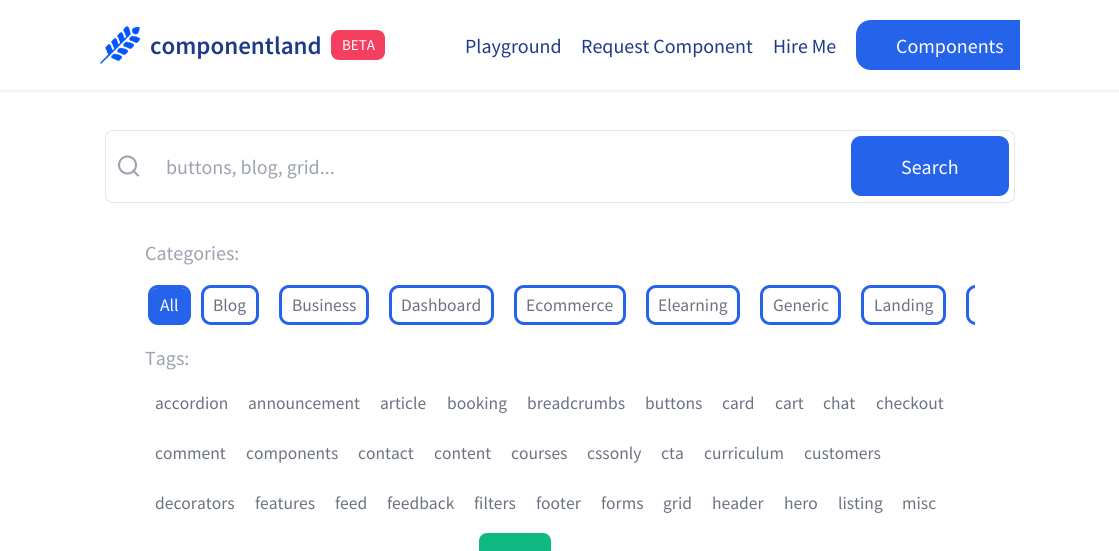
#include <cairo.h>
#include <math.h>
#include <stddef.h>

static cairo_t *c;
static void C(unsigned color){cairo_set_source_rgb(c, (color >> 16) / 255.0, (color >> 8 & 255) / 255.0, (color & 255) / 255.0);}
static void F(const char *family, double size, int italic, int bold){cairo_select_font_face(c, family, italic ? CAIRO_FONT_SLANT_ITALIC : CAIRO_FONT_SLANT_NORMAL,bold ? CAIRO_FONT_WEIGHT_BOLD : CAIRO_FONT_WEIGHT_NORMAL);cairo_set_font_size(c, size);}
static void T(double x, double y, const char *s){cairo_move_to(c, x, y);cairo_show_text(c, s);}
static void Q(double x, double y, double w, double h, double r){cairo_new_sub_path(c);cairo_arc(c, x + w - r, y + h - r, r, 0, M_PI / 2);cairo_arc(c, x + r, y + h - r, r, M_PI / 2, M_PI);cairo_arc(c, x + r, y + r, r, M_PI, 1.5 * M_PI);cairo_arc(c, x + w - r, y + r, r, 1.5 * M_PI, 2 * M_PI);cairo_close_path(c);}
static void S(double x, double y, double w, double h, double r, double blur, double alpha){cairo_push_group_with_content(c, CAIRO_CONTENT_ALPHA);cairo_set_operator(c, CAIRO_OPERATOR_SOURCE);for (int i = 15; i >= -15 && fmin(w, h) + blur * i / 3 > 0; i -= 2) {double e = blur * i / 6;cairo_set_source_rgba(c, 0, 0, 0, alpha * erfc((i - 1) / 8.5) / 2);Q(x - e, y - e, w + 2 * e, h + 2 * e, fmax(0, fmin(r + e + blur * .6, fmin(w, h) / 2 + e)));cairo_fill(c);}cairo_pattern_t *soft = cairo_pop_group(c);cairo_mask(c, soft);cairo_pattern_destroy(soft);}
static void I(const char *path, double x, double y, double w, double h){cairo_surface_t *image = cairo_image_surface_create_from_png(path);cairo_save(c);cairo_set_source_surface(c, image, x, y);cairo_rectangle(c, x, y, w, h);cairo_fill(c);cairo_restore(c);cairo_surface_destroy(image);}
int main(void) {
cairo_surface_t *surface = cairo_image_surface_create(CAIRO_FORMAT_RGB24, 1119, 551);
c = cairo_create(surface);
cairo_font_options_t *options = cairo_font_options_create();
cairo_font_options_set_hint_metrics(options, CAIRO_HINT_METRICS_OFF);
cairo_font_options_set_hint_style(options, CAIRO_HINT_STYLE_NONE);
cairo_set_font_options(c, options);
cairo_set_miter_limit(c, 4);
C(0xffffff);
cairo_paint(c);
cairo_save(c);
cairo_rectangle(c,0,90,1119,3);
cairo_clip(c);
C(0x000000);
S(0,1,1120,90,0,2,.1);
cairo_restore(c);
I("1.png",100,26,40,38);
F("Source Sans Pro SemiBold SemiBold",25,0,0);
C(0x1e3a8a);
T(150,54,"componentland");
C(0xf43f5e);
Q(331,30,54,30,8);
cairo_fill(c);
F("Source Sans Pro",15,0,0);
C(0xffffff);
T(342,50,"BETA");
F("Source Sans Pro",20,0,0);
C(0x1e3a8a);
T(465,53,"Playground");
T(581,53,"Request Component");
T(773,53,"Hire Me");
C(0x2563eb);
cairo_new_path(c);
cairo_move_to(c,871,20);
cairo_line_to(c,1020,20);
cairo_line_to(c,1020,70);
cairo_line_to(c,871,70);
cairo_curve_to(c,862.5,70,856,63.5,856,55);
cairo_line_to(c,856,35);
cairo_curve_to(c,856,26.5,862.5,20,871,20);
cairo_close_path(c);
cairo_fill(c);
C(0xffffff);
T(896,53,"Components");
Q(105.5,130.5,909,72,7.5);
C(0xe5e7eb);
cairo_set_line_width(c,1);
cairo_stroke(c);
C(0xffffff);
Q(106,131,908,70,8);
cairo_fill(c);
cairo_arc(c,127.5,165,8.5,0,2 * M_PI);
C(0x9ca3af);
cairo_set_line_width(c,2.1);
cairo_stroke(c);
cairo_new_path(c);
cairo_move_to(c,138,175.5);
cairo_line_to(c,133.5,171);
cairo_set_line_cap(c,CAIRO_LINE_CAP_ROUND);
cairo_set_line_join(c,CAIRO_LINE_JOIN_ROUND);
cairo_stroke(c);
T(166,174,"buttons, blog, grid...");
C(0x2563eb);
Q(851,136,158,60,10);
cairo_fill(c);
C(0xffffff);
T(901,174,"Search");
C(0x9ca3af);
T(145,260,"Categories:");
Q(149.5,286.5,40,37,8.5);
C(0x2563eb);
cairo_set_line_width(c,3);
cairo_set_line_cap(c,CAIRO_LINE_CAP_BUTT);
cairo_set_line_join(c,CAIRO_LINE_JOIN_MITER);
cairo_stroke(c);
Q(150,288,39,35,8);
cairo_fill(c);
F("Source Sans Pro",17.5,0,0);
C(0xffffff);
T(160,311,"All");
Q(202.5,286.5,55,37,8.5);
C(0x2563eb);
cairo_stroke(c);
C(0x6b7280);
T(213,311,"Blog");
Q(280.5,286.5,87,37,8.5);
C(0x2563eb);
cairo_stroke(c);
C(0x6b7280);
T(292,311,"Business");
Q(390.5,286.5,102,37,8.5);
C(0x2563eb);
cairo_stroke(c);
C(0x6b7280);
T(401,311,"Dashboard");
Q(515.5,286.5,109,37,8.5);
C(0x2563eb);
cairo_stroke(c);
C(0x6b7280);
T(526,311,"Ecommerce");
Q(647.5,286.5,91,37,8.5);
C(0x2563eb);
cairo_stroke(c);
C(0x6b7280);
T(658,311,"Elearning");
Q(761.5,286.5,78,37,8.5);
C(0x2563eb);
cairo_stroke(c);
C(0x6b7280);
T(773,311,"Generic");
Q(862.5,286.5,82,37,8.5);
C(0x2563eb);
cairo_stroke(c);
C(0x6b7280);
T(874,311,"Landing");
cairo_save(c);
cairo_rectangle(c,145,268,830,60);
cairo_clip(c);
Q(967.5,286.5,77,37,8.5);
C(0x2563eb);
cairo_stroke(c);
cairo_restore(c);
F("Source Sans Pro",20,0,0);
C(0x9ca3af);
T(145,365,"Tags:");
F("Source Sans Pro",17.5,0,0);
C(0x6b7280);
T(155,409,"accordion");
T(248,409,"announcement");
T(380,409,"article");
T(447,409,"booking");
T(527,409,"breadcrumbs");
T(645,409,"buttons");
T(722,409,"card");
T(775,409,"cart");
T(823,409,"chat");
T(876,409,"checkout");
T(155,459,"comment");
T(246,459,"components");
T(358,459,"contact");
T(434,459,"content");
T(511,459,"courses");
T(587,459,"cssonly");
T(661,459,"cta");
T(704,459,"curriculum");
T(804,459,"customers");
T(155,509,"decorators");
T(255,509,"features");
T(335,509,"feed");
T(387,509,"feedback");
T(474,509,"filters");
T(536,509,"footer");
T(601,509,"forms");
T(663,509,"grid");
T(712,509,"header");
T(784,509,"hero");
T(838,509,"listing");
T(902,509,"misc");
C(0x10b981);
Q(479,533,72,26,8);
cairo_fill(c);
cairo_surface_write_to_png(surface, "o.png");
cairo_font_options_destroy(options);
cairo_destroy(c);
cairo_surface_destroy(surface);
return 0;
}
